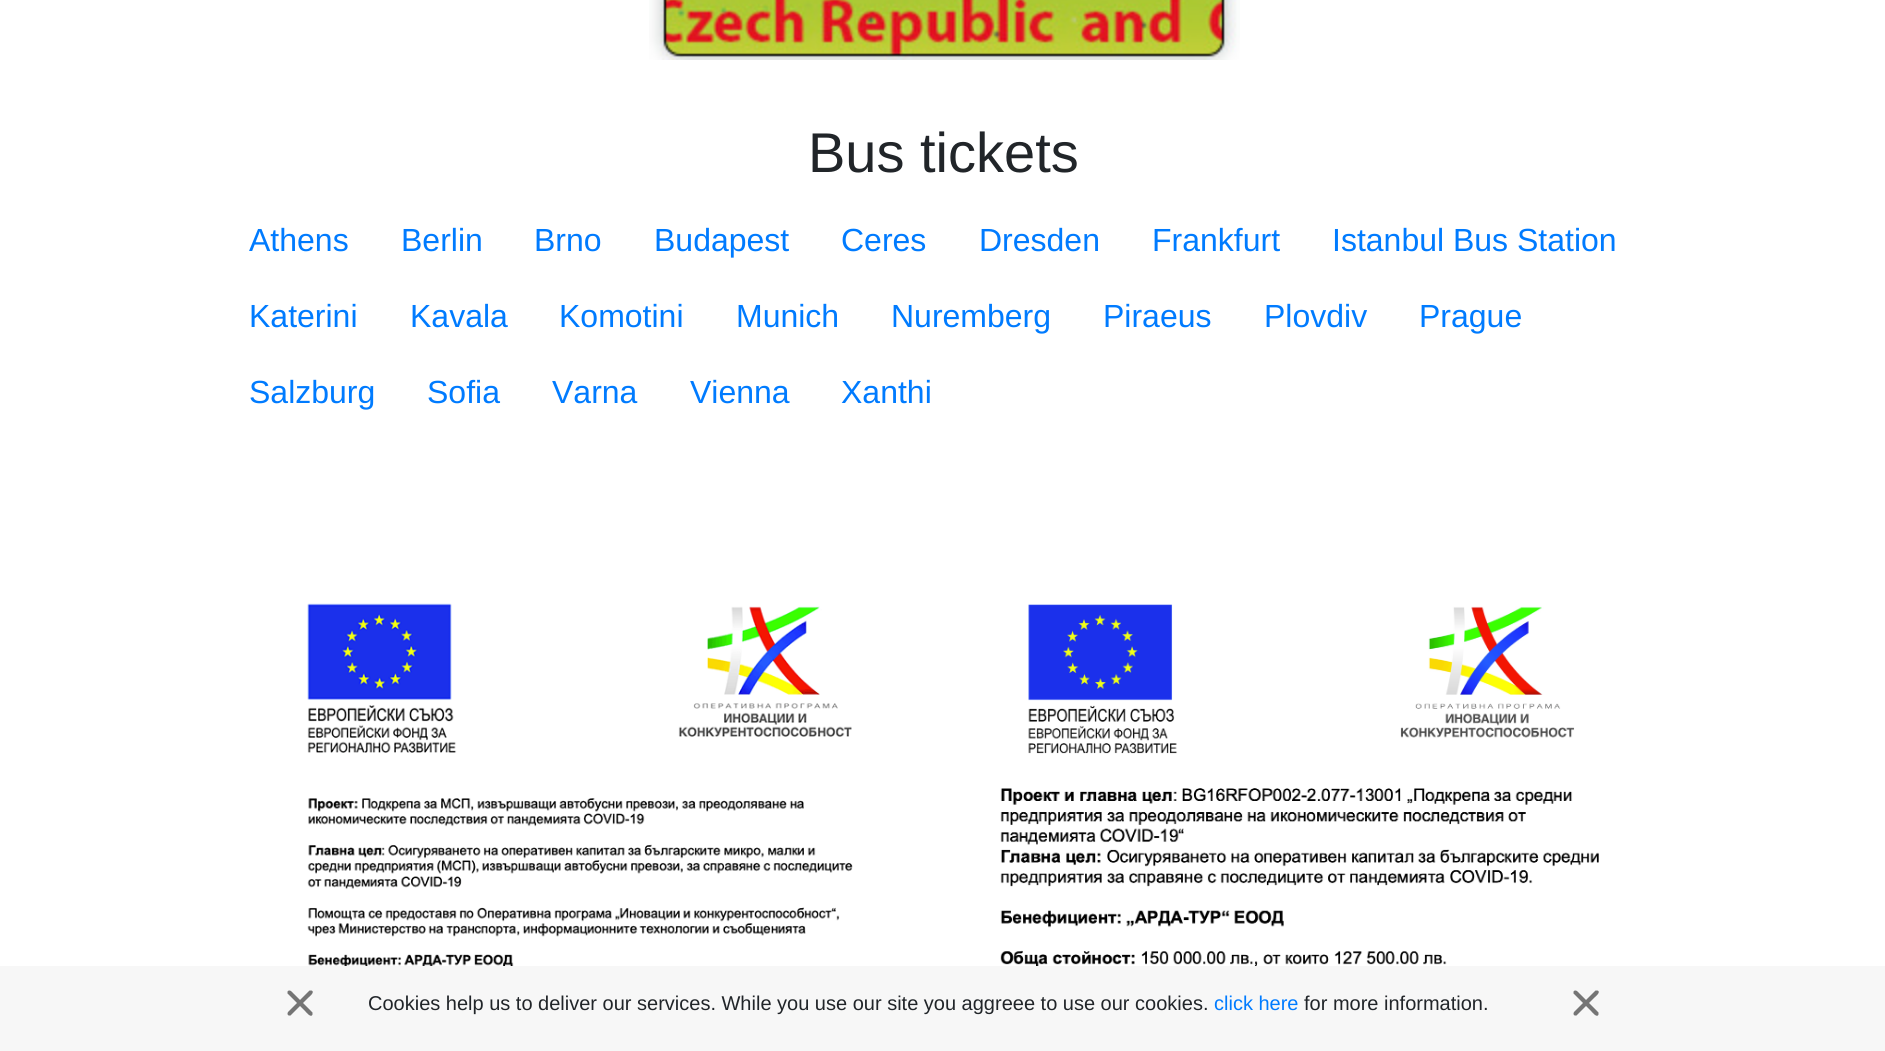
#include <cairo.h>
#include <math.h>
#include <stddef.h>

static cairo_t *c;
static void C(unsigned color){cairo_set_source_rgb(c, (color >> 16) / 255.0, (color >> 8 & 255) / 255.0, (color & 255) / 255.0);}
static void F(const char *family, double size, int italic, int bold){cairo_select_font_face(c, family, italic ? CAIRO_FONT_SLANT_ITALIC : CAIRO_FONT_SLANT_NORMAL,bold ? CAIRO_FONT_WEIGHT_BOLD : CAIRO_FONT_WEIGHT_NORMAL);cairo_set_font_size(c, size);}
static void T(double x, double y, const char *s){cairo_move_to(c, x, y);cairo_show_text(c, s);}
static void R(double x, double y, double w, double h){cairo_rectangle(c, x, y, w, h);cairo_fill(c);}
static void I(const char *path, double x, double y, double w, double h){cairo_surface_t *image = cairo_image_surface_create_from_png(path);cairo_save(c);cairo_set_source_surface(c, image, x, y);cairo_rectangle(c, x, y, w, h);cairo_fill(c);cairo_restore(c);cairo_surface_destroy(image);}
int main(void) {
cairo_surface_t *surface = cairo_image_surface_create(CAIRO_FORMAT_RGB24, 1885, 1051);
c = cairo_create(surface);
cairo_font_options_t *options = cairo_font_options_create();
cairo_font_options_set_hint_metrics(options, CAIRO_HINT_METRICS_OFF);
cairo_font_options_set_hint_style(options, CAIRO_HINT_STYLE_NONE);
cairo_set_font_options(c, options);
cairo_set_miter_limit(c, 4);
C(0xffffff);
cairo_paint(c);
I("1.png",649,0,591,60);
F("Liberation Sans",56,0,0);
C(0x212529);
T(808,172,"Bus tickets");
F("Liberation Sans",32,0,0);
C(0x007bff);
T(249,251,"Athens");
T(401,251,"Berlin");
T(534,251,"Brno");
T(654,251,"Budapest");
T(841,251,"Ceres");
T(979,251,"Dresden");
T(1152,251,"Frankfurt");
T(1332,251,"Istanbul Bus Station");
T(249,327,"Katerini");
T(410,327,"Kavala");
T(559,327,"Komotini");
T(736,327,"Munich");
T(891,327,"Nuremberg");
T(1103,327,"Piraeus");
T(1264,327,"Plovdiv");
T(1419,327,"Prague");
T(249,403,"Salzburg");
T(427,403,"Sofia");
T(552,403,"Varna");
T(690,403,"Vienna");
T(841,403,"Xanthi");
I("2.png",307,603,546,363);
I("3.png",1000,604,599,362);
C(0xf7f7f7);
R(0,966,1885,85);
C(0x757575);
cairo_new_path(c);
cairo_move_to(c,291,991);
cairo_line_to(c,312.5,1012.5);
cairo_curve_to(c,312.5,1013,312.5,1014,312.5,1014.5);
cairo_curve_to(c,311,1018.5,306,1012,305.5,1011.5);
cairo_line_to(c,287.5,993.5);
cairo_line_to(c,287.5,992);
cairo_curve_to(c,287.5,990.5,289.5,990,291,991);
cairo_close_path(c);
cairo_fill(c);
cairo_new_path(c);
cairo_move_to(c,288,1012);
cairo_line_to(c,309.5,990.5);
cairo_curve_to(c,310,990.5,311,990.5,311.5,990.5);
cairo_curve_to(c,315.5,992,309,997,308.5,997.5);
cairo_line_to(c,290.5,1015.5);
cairo_line_to(c,289,1015.5);
cairo_curve_to(c,287.5,1015.5,287,1013.5,288,1012);
cairo_close_path(c);
cairo_fill(c);
F("Liberation Sans",20,0,0);
C(0x212529);
T(368,1010,"Cookies help us to deliver our services. While you use our site you aggreee to use our cookies.");
C(0x007bff);
T(1214,1010,"click here");
C(0x212529);
T(1304,1010,"for more information.");
C(0x757575);
cairo_new_path(c);
cairo_move_to(c,1577,991);
cairo_line_to(c,1598.5,1012.5);
cairo_curve_to(c,1598.5,1013,1598.5,1014,1598.5,1014.5);
cairo_curve_to(c,1597,1018.5,1592,1012,1591.5,1011.5);
cairo_line_to(c,1573.5,993.5);
cairo_line_to(c,1573.5,992);
cairo_curve_to(c,1573.5,990.5,1575.5,990,1577,991);
cairo_close_path(c);
cairo_fill(c);
cairo_new_path(c);
cairo_move_to(c,1574,1012);
cairo_line_to(c,1595.5,990.5);
cairo_curve_to(c,1596,990.5,1597,990.5,1597.5,990.5);
cairo_curve_to(c,1601.5,992,1595,997,1594.5,997.5);
cairo_line_to(c,1576.5,1015.5);
cairo_line_to(c,1575,1015.5);
cairo_curve_to(c,1573.5,1015.5,1573,1013.5,1574,1012);
cairo_close_path(c);
cairo_fill(c);
cairo_surface_write_to_png(surface, "o.png");
cairo_font_options_destroy(options);
cairo_destroy(c);
cairo_surface_destroy(surface);
return 0;
}
